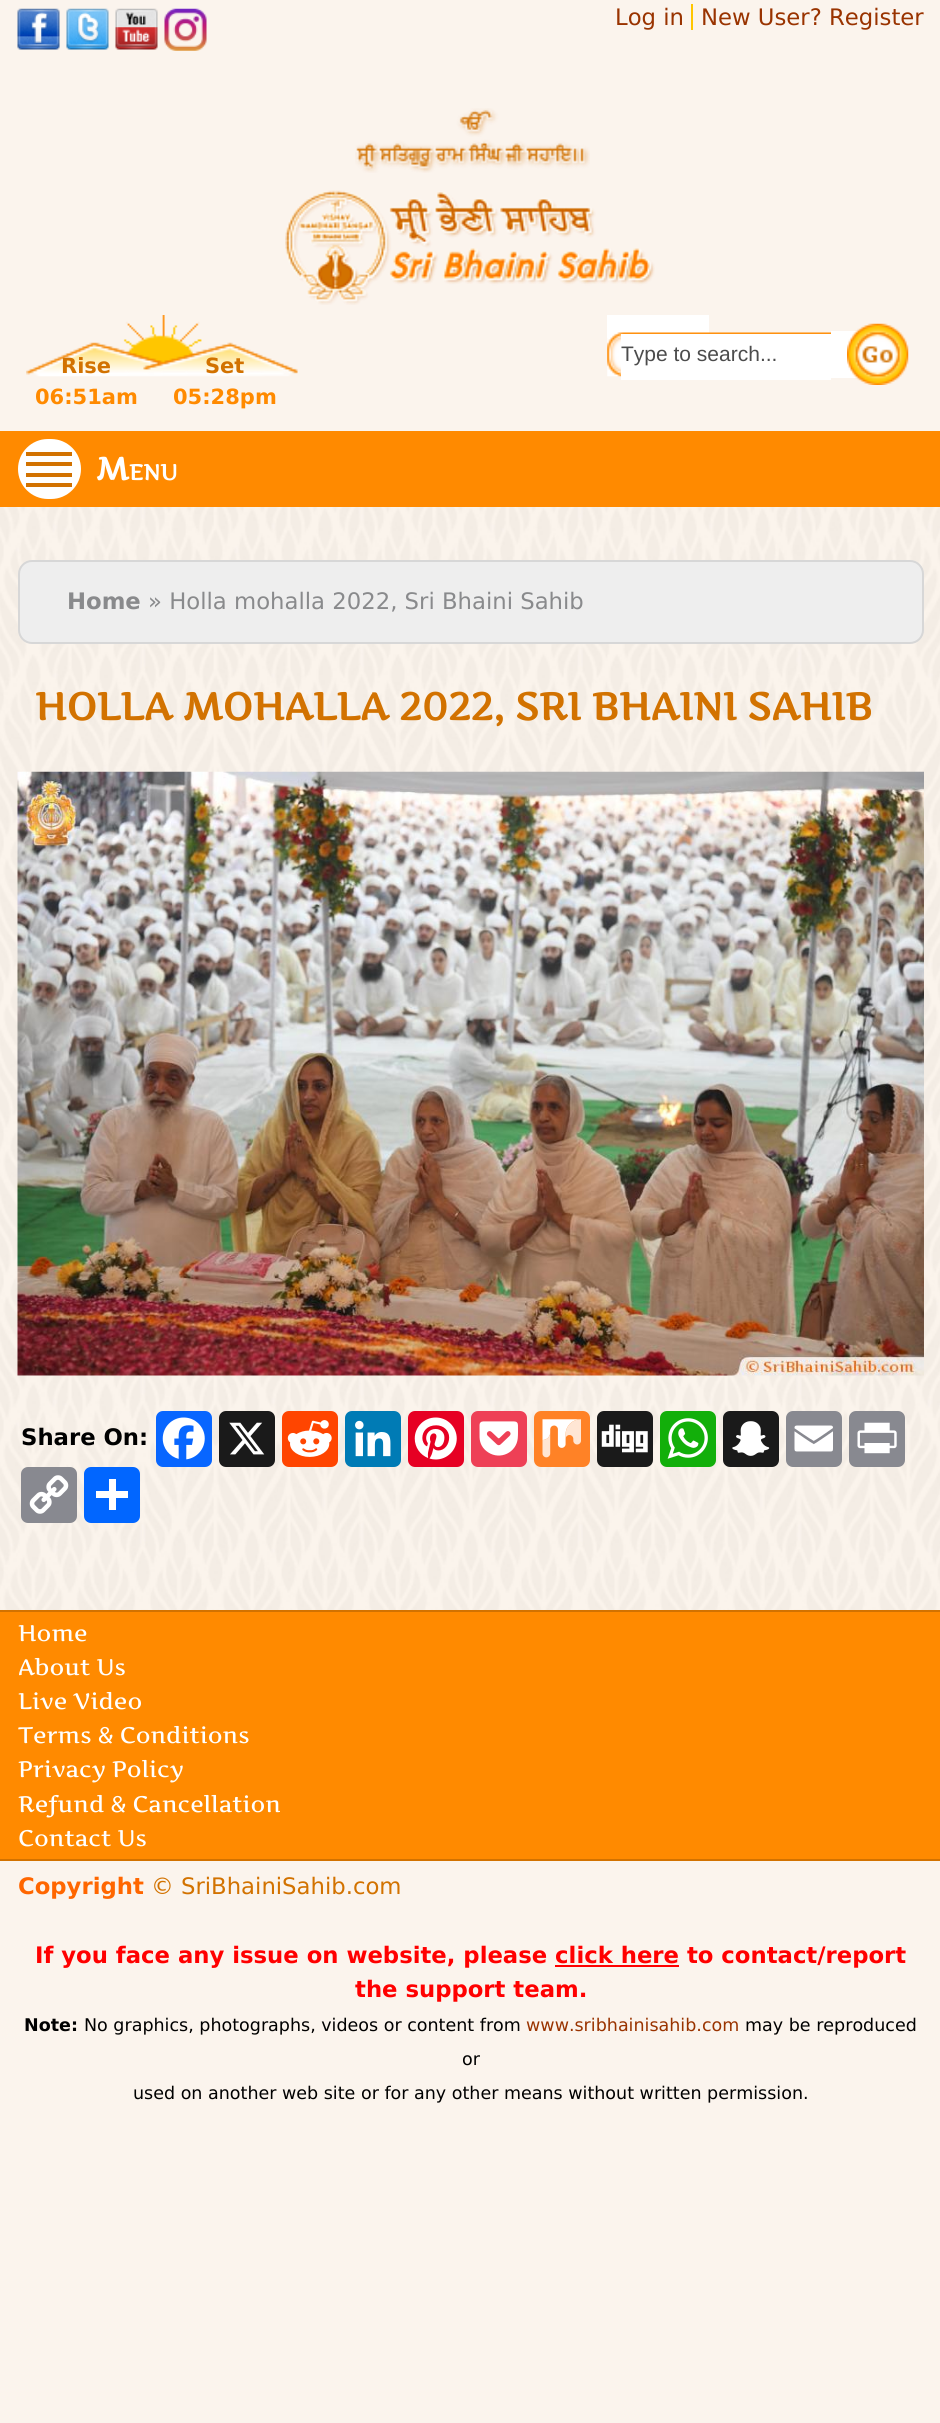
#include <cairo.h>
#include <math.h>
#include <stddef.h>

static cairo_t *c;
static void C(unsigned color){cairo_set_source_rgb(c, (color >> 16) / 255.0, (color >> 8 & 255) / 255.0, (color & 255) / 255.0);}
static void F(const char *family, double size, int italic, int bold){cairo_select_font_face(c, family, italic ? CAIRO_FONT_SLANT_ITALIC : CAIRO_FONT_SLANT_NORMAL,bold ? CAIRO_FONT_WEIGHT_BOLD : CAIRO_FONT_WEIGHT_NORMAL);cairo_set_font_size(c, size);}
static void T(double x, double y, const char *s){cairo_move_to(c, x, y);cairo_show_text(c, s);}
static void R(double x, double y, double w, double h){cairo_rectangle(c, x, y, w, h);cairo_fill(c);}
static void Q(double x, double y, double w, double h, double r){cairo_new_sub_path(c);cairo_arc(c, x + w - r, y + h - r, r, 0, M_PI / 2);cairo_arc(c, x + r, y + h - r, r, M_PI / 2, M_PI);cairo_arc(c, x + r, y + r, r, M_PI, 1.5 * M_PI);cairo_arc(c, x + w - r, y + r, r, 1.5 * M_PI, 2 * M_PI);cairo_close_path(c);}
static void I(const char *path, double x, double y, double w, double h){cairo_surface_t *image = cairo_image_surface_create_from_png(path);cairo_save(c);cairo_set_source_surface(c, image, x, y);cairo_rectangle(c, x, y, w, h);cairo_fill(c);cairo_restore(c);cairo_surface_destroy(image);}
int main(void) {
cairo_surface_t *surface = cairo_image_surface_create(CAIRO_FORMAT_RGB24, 940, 2423);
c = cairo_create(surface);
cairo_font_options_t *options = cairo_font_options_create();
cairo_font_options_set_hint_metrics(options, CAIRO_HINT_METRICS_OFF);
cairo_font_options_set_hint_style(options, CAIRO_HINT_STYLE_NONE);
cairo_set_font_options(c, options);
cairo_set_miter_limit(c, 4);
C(0xfbf4ed);
cairo_paint(c);
I("1.png",17,8,43,42);
I("2.png",66,8,43,42);
I("3.png",115,8,43,42);
I("4.png",164,8,43,43);
F("DejaVu Sans",22.75,0,0);
C(0x993300);
T(615,25,"Log in");
C(0xffc600);
R(691,4,2,26);
C(0x993300);
T(701,25,"New User? Register");
I("5.png",355,108,235,65);
I("6.png",285,190,370,115);
I("7.png",26,315,272,62);
F("DejaVu Sans",21,0,1);
C(0xd27200);
T(61,373,"Rise");
T(205,373,"Set");
C(0xff8a00);
T(35,404,"06:51am");
T(173,404,"05:28pm");
C(0xffffff);
R(607,315,102,23);
I("8.png",607,332,224,45);
R(621,334,210,46);
R(831,331,31,47);
F("Liberation Sans",21,0,0);
C(0x4c4c4c);
T(621,361,"Type to search...");
I("9.png",847,323,62,62);
C(0xff8a00);
R(0,431,940,76);
C(0xffffff);
Q(18,439,63,60,30);
cairo_fill(c);
C(0xd27200);
R(26,452,46,4);
R(26,462,46,4);
F("Artifika",32,0,1);
C(0xffffff);
T(96,480,"M");
F("Artifika",22,0,1);
T(129,480,"ENU");
C(0xd27200);
R(26,473,46,4);
R(26,483,46,4);
I("10.png",0,507,940,1103);
C(0xeeeeee);
Q(19,561,904,82,13);
cairo_fill_preserve(c);
C(0xd7d7d7);
cairo_stroke(c);
F("DejaVu Sans",22.75,0,1);
C(0x898a8c);
T(67,609,"Home");
F("DejaVu Sans",22.75,0,0);
T(148,609,"» Holla mohalla 2022, Sri Bhaini Sahib");
F("Artifika",38.5,0,1);
C(0xd27200);
T(35,720,"HOLLA MOHALLA 2022, SRI BHAINI SAHIB");
I("11.png",17,771,907,605);
F("DejaVu Sans",22.75,0,1);
C(0x000000);
T(21,1445,"Share On:");
C(0x0866ff);
Q(156,1411,56,56,7);
cairo_fill(c);
I("12.png",162,1417,43,43);
C(0x1a1a1a);
Q(219,1411,56,56,7);
cairo_fill(c);
I("13.png",229,1422,36,33);
C(0xff4500);
Q(282,1411,56,56,7);
cairo_fill(c);
I("14.png",287,1420,45,37);
C(0x007bb5);
Q(345,1411,56,56,7);
cairo_fill(c);
I("15.png",355,1420,36,37);
C(0xe60023);
Q(408,1411,56,56,7);
cairo_fill(c);
I("16.png",414,1417,43,43);
C(0xee4056);
Q(471,1411,56,56,7);
cairo_fill(c);
I("17.png",479,1421,39,35);
C(0xff8226);
Q(534,1411,56,56,7);
cairo_fill(c);
I("18.png",542,1419,39,39);
C(0x1a1a1a);
Q(597,1411,56,56,7);
cairo_fill(c);
I("19.png",601,1424,47,29);
C(0x12af0a);
Q(660,1411,56,56,7);
cairo_fill(c);
I("20.png",667,1418,41,41);
C(0x1a1a1a);
Q(723,1411,56,56,7);
cairo_fill(c);
I("21.png",732,1421,38,35);
C(0x888990);
Q(786,1411,56,56,7);
cairo_fill(c);
I("22.png",794,1425,39,27);
Q(849,1411,56,56,7);
cairo_fill(c);
I("23.png",857,1422,40,32);
Q(21,1467,56,56,7);
cairo_fill(c);
I("24.png",29,1475,40,39);
C(0x0166ff);
Q(84,1467,56,56,7);
cairo_fill(c);
C(0xffffff);
R(109,1479,7,31);
R(96,1491,32,7);
C(0xff8a00);
R(0,1612,940,247);
C(0xd27200);
R(0,1610,940,2);
R(0,1859,940,2);
F("Artifika Medium",22.75,0,0);
C(0xffffff);
T(18,1641,"Home");
T(18,1675,"About Us");
T(18,1709,"Live Video");
T(18,1743,"Terms & Conditions");
T(18,1777,"Privacy Policy");
T(18,1812,"Refund & Cancellation");
T(18,1846,"Contact Us");
F("DejaVu Sans",22.75,0,1);
C(0xff6600);
T(18,1894,"Copyright");
F("DejaVu Sans",22.75,0,0);
C(0xd27200);
T(151,1894,"© SriBhainiSahib.com");
F("DejaVu Sans",22.75,0,1);
C(0xff0000);
T(35,1963,"If you face any issue on website, please click here to contact/report");
R(555,1965,124,2);
T(355,1997,"the support team.");
F("DejaVu Sans",17.5,0,1);
C(0x000000);
T(24,2031,"Note:");
F("DejaVu Sans",17.5,0,0);
T(84,2031,"No graphics, photographs, videos or content from");
C(0x993300);
T(526,2031,"www.sribhainisahib.com");
C(0x000000);
T(745,2031,"may be reproduced");
T(462,2065,"or");
T(133,2099,"used on another web site or for any other means without written permission.");
cairo_surface_write_to_png(surface, "o.png");
cairo_font_options_destroy(options);
cairo_destroy(c);
cairo_surface_destroy(surface);
return 0;
}
